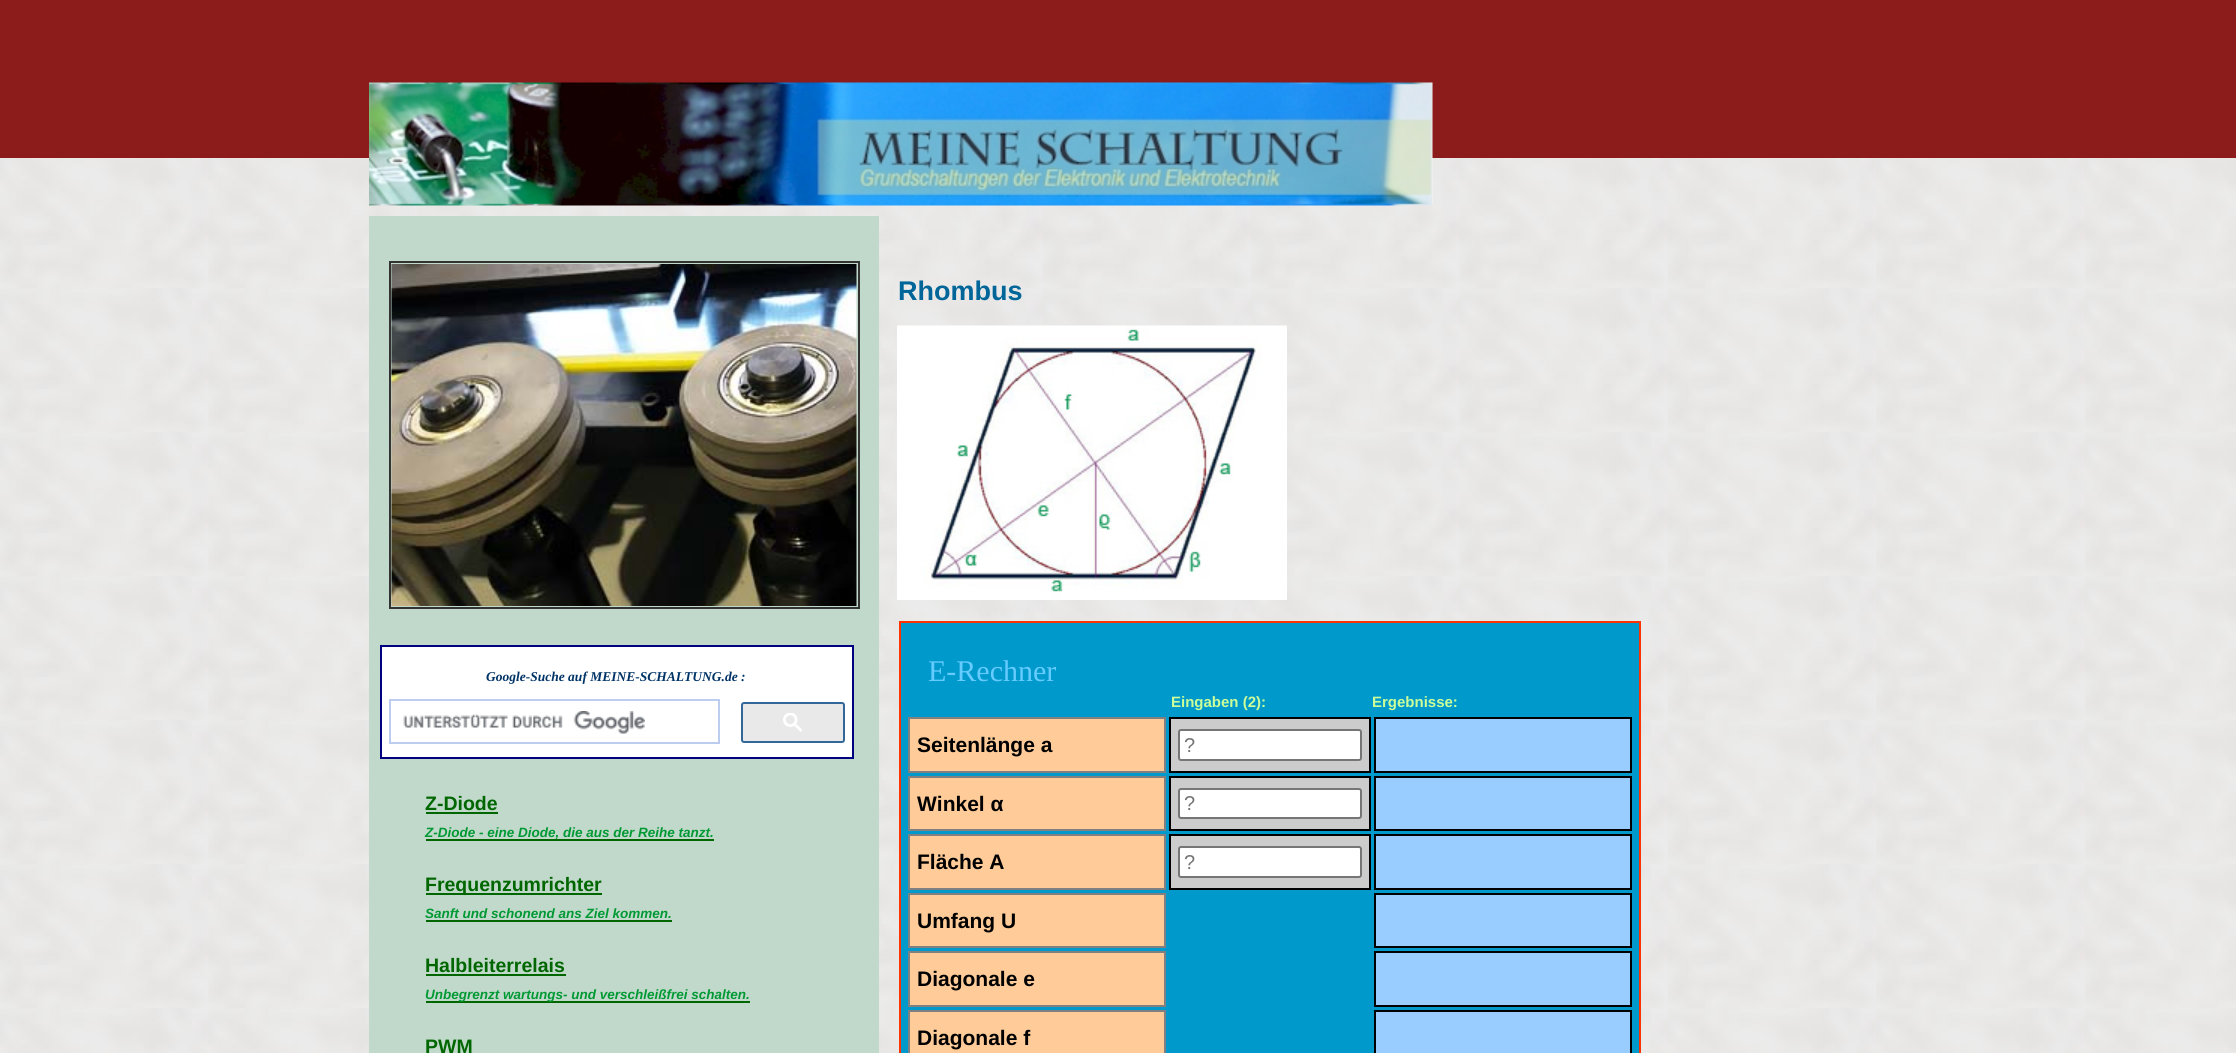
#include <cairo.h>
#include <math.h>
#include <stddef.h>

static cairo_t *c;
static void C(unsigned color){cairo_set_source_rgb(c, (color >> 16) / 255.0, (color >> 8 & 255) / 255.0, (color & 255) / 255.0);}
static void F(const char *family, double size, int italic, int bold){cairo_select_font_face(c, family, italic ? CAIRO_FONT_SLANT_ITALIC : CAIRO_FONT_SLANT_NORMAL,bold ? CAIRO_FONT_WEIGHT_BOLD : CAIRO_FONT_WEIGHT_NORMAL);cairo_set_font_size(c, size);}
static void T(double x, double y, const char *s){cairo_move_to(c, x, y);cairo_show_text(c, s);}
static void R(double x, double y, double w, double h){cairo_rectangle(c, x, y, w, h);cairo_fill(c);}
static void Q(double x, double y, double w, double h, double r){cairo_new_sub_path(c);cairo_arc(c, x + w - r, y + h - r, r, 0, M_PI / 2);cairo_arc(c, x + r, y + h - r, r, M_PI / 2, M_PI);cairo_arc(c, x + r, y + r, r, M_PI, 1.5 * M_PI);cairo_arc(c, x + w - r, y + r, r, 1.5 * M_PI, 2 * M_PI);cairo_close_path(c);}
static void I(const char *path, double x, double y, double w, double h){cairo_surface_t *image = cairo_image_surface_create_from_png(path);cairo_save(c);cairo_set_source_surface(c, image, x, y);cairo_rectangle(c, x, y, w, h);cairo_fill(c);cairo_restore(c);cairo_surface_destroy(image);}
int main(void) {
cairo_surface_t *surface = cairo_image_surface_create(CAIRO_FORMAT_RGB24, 2236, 1053);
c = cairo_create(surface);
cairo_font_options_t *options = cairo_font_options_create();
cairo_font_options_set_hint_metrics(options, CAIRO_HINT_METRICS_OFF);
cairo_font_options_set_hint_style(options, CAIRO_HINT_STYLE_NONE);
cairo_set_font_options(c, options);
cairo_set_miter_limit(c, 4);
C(0xffffff);
cairo_paint(c);
I("1.png",0,158,2236,895);
C(0x8c1c1b);
R(0,0,2236,158);
I("2.png",369,82,1064,124);
C(0xc1d9cb);
R(369,216,510,837);
cairo_rectangle(c,390,262,469,346);
C(0x333333);
cairo_stroke(c);
I("3.png",391,264,466,342);
C(0xffffff);
cairo_rectangle(c,381,646,472,112);
cairo_fill_preserve(c);
C(0x000080);
cairo_stroke(c);
F("Liberation Serif",13.5,1,1);
C(0x003366);
T(486,681,"Google-Suche auf MEINE-SCHALTUNG.de :");
cairo_rectangle(c,390,700,329,43);
C(0xbccdf0);
cairo_stroke(c);
I("4.png",403,711,242,23);
C(0xe9e9e9);
Q(742,703,102,39,2);
cairo_fill_preserve(c);
C(0x336699);
cairo_stroke(c);
I("5.png",783,713,19,19);
F("Liberation Sans",19.5,0,1);
C(0x006600);
T(425,810,"Z-Diode");
R(426,812,72,2);
R(426,839,288,2);
F("Liberation Sans",13.5,1,1);
C(0x009933);
T(425,837,"Z-Diode - eine Diode, die aus der Reihe tanzt.");
C(0x006600);
R(426,893,176,2);
F("Liberation Sans",19.5,0,1);
T(425,891,"Frequenzumrichter");
F("Liberation Sans",13.5,1,1);
C(0x009933);
T(425,918,"Sanft und schonend ans Ziel kommen.");
C(0x006600);
R(426,920,246,2);
F("Liberation Sans",19.5,0,1);
T(425,972,"Halbleiterrelais");
R(426,974,140,2);
R(426,1001,324,2);
F("Liberation Sans",13.5,1,1);
C(0x009933);
T(425,999,"Unbegrenzt wartungs- und verschleißfrei schalten.");
F("Liberation Sans",19.5,0,1);
C(0x006600);
T(425,1053,"PWM");
F("Liberation Sans",27,0,1);
C(0x006699);
T(898,300,"Rhombus");
I("6.png",897,325,390,275);
C(0x0099cc);
cairo_rectangle(c,900,622,740,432);
cairo_fill_preserve(c);
C(0xff3300);
cairo_stroke(c);
F("Liberation Serif",30,0,0);
C(0x66ccff);
T(928,681,"E-Rechner");
F("Liberation Sans",15,0,1);
C(0xccff99);
T(1171,707,"Eingaben (2):");
T(1372,707,"Ergebnisse:");
C(0xffcc99);
cairo_rectangle(c,909,718,256,54);
cairo_fill_preserve(c);
C(0x808080);
cairo_stroke(c);
F("Liberation Sans",21,0,1);
C(0x000000);
T(917,752,"Seitenlänge a");
C(0xcccccc);
cairo_rectangle(c,1170,718,200,54);
cairo_fill_preserve(c);
C(0x000000);
cairo_stroke(c);
C(0xffffff);
Q(1179,730,182,30,2);
cairo_fill_preserve(c);
C(0x767676);
cairo_stroke(c);
F("Liberation Sans",20,0,0);
C(0x757575);
T(1184,752,"?");
C(0x99ccff);
cairo_rectangle(c,1375,718,256,54);
cairo_fill_preserve(c);
C(0x000000);
cairo_stroke(c);
C(0xffcc99);
cairo_rectangle(c,909,777,256,53);
cairo_fill_preserve(c);
C(0x808080);
cairo_stroke(c);
F("Liberation Sans",21,0,1);
C(0x000000);
T(917,811,"Winkel α");
C(0xcccccc);
cairo_rectangle(c,1170,777,200,53);
cairo_fill_preserve(c);
C(0x000000);
cairo_stroke(c);
C(0xffffff);
Q(1179,789,182,29,2);
cairo_fill_preserve(c);
C(0x767676);
cairo_stroke(c);
F("Liberation Sans",20,0,0);
C(0x757575);
T(1184,810,"?");
C(0x99ccff);
cairo_rectangle(c,1375,777,256,53);
cairo_fill_preserve(c);
C(0x000000);
cairo_stroke(c);
C(0xffcc99);
cairo_rectangle(c,909,835,256,54);
cairo_fill_preserve(c);
C(0x808080);
cairo_stroke(c);
F("Liberation Sans",21,0,1);
C(0x000000);
T(917,869,"Fläche A");
C(0xcccccc);
cairo_rectangle(c,1170,835,200,54);
cairo_fill_preserve(c);
C(0x000000);
cairo_stroke(c);
C(0xffffff);
Q(1179,847,182,30,2);
cairo_fill_preserve(c);
C(0x767676);
cairo_stroke(c);
F("Liberation Sans",20,0,0);
C(0x757575);
T(1184,869,"?");
C(0x99ccff);
cairo_rectangle(c,1375,835,256,54);
cairo_fill_preserve(c);
C(0x000000);
cairo_stroke(c);
C(0xffcc99);
cairo_rectangle(c,909,894,256,53);
cairo_fill_preserve(c);
C(0x808080);
cairo_stroke(c);
F("Liberation Sans",21,0,1);
C(0x000000);
T(917,928,"Umfang U");
C(0x99ccff);
cairo_rectangle(c,1375,894,256,53);
cairo_fill_preserve(c);
C(0x000000);
cairo_stroke(c);
C(0xffcc99);
cairo_rectangle(c,909,952,256,54);
cairo_fill_preserve(c);
C(0x808080);
cairo_stroke(c);
C(0x000000);
T(917,986,"Diagonale e");
C(0x99ccff);
cairo_rectangle(c,1375,952,256,54);
cairo_fill_preserve(c);
C(0x000000);
cairo_stroke(c);
C(0xffcc99);
cairo_rectangle(c,909,1011,256,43);
cairo_fill_preserve(c);
C(0x808080);
cairo_stroke(c);
C(0x000000);
T(917,1045,"Diagonale f");
C(0x99ccff);
cairo_rectangle(c,1375,1011,256,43);
cairo_fill_preserve(c);
C(0x000000);
cairo_stroke(c);
cairo_surface_write_to_png(surface, "o.png");
cairo_font_options_destroy(options);
cairo_destroy(c);
cairo_surface_destroy(surface);
return 0;
}
